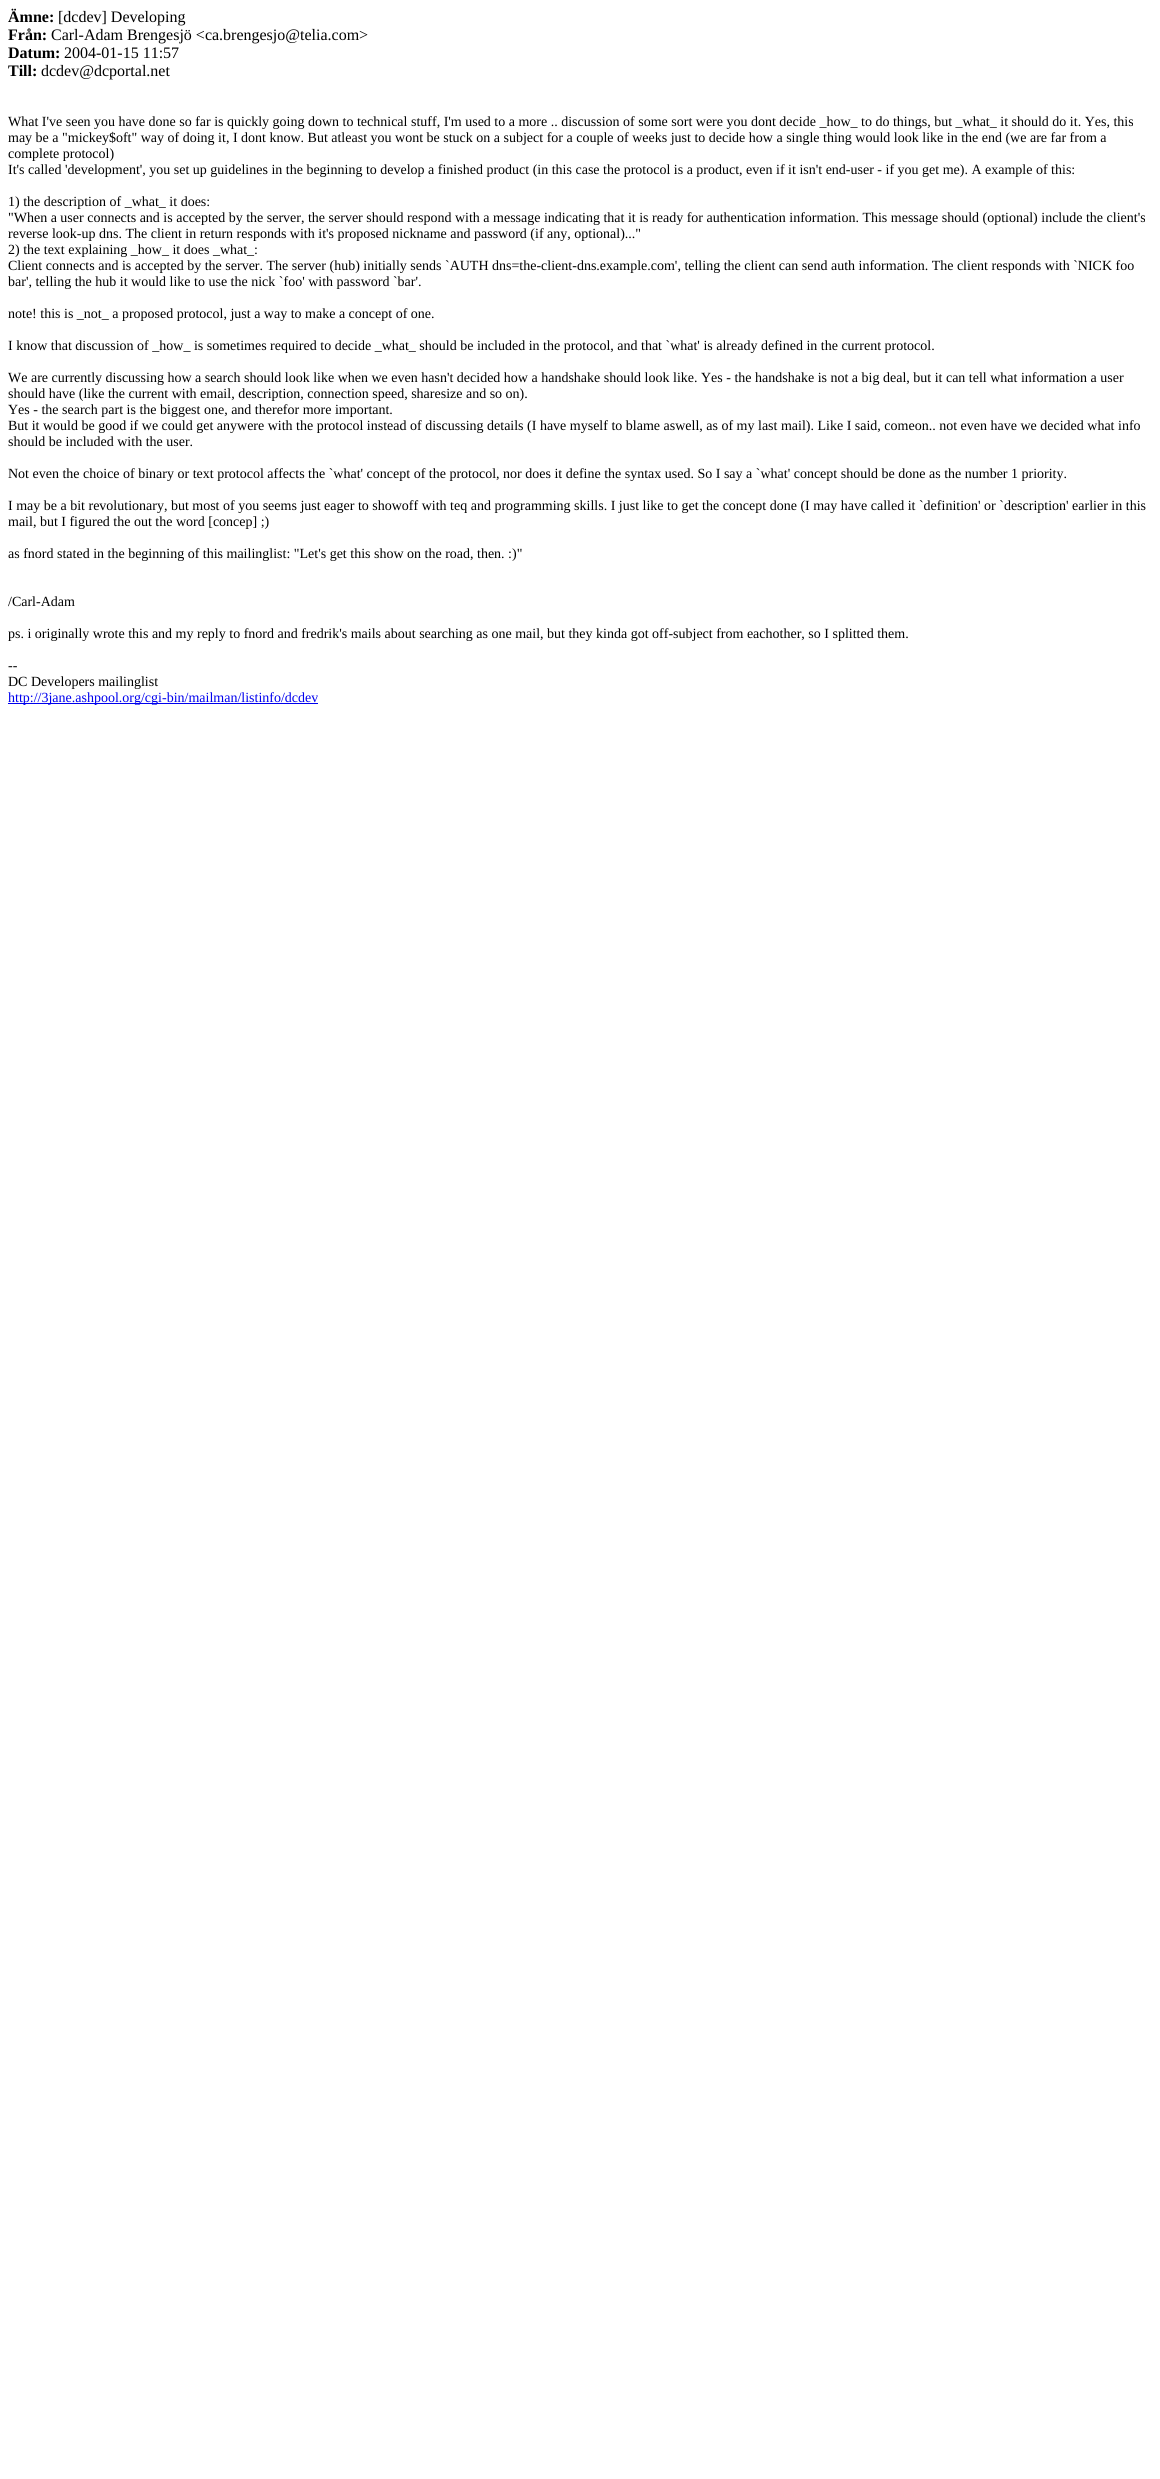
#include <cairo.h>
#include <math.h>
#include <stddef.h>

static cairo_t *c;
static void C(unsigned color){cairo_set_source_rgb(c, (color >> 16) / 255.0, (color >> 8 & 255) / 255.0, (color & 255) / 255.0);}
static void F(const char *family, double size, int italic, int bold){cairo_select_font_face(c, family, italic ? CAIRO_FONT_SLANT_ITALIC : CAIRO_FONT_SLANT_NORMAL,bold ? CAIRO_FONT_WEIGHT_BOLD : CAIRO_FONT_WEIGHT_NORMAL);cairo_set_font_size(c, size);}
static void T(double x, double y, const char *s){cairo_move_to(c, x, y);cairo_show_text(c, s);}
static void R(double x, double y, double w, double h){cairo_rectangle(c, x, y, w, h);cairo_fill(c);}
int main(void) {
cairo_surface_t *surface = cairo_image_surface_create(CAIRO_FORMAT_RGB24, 1160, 2479);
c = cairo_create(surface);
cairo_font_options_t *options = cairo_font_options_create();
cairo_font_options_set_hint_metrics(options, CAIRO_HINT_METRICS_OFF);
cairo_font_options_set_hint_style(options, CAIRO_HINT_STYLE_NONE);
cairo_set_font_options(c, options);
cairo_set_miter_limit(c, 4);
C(0xffffff);
cairo_paint(c);
F("Liberation Serif",16,0,1);
C(0x000000);
T(8,22,"Ämne:");
F("Liberation Serif",16,0,0);
T(58,22,"[dcdev] Developing");
F("Liberation Serif",16,0,1);
T(8,40,"Från:");
F("Liberation Serif",16,0,0);
T(51,40,"Carl-Adam Brengesjö <ca.brengesjo@telia.com>");
F("Liberation Serif",16,0,1);
T(8,58,"Datum:");
F("Liberation Serif",16,0,0);
T(64,58,"2004-01-15 11:57");
F("Liberation Serif",16,0,1);
T(8,76,"Till:");
F("Liberation Serif",16,0,0);
T(41,76,"dcdev@dcportal.net");
F("Liberation Serif",14,0,0);
T(8,126,"What I've seen you have done so far is quickly going down to technical stuff, I'm used to a more .. discussion of some sort were you dont decide _how_ to do things, but _what_ it should do it. Yes, this");
T(8,142,"may be a \"mickey$oft\" way of doing it, I dont know. But atleast you wont be stuck on a subject for a couple of weeks just to decide how a single thing would look like in the end (we are far from a");
T(8,158,"complete protocol)");
T(8,174,"It's called 'development', you set up guidelines in the beginning to develop a finished product (in this case the protocol is a product, even if it isn't end-user - if you get me). A example of this:");
T(8,206,"1) the description of _what_ it does:");
T(8,222,"\"When a user connects and is accepted by the server, the server should respond with a message indicating that it is ready for authentication information. This message should (optional) include the client's");
T(8,238,"reverse look-up dns. The client in return responds with it's proposed nickname and password (if any, optional)...\"");
T(8,254,"2) the text explaining _how_ it does _what_:");
T(8,270,"Client connects and is accepted by the server. The server (hub) initially sends `AUTH dns=the-client-dns.example.com', telling the client can send auth information. The client responds with `NICK foo");
T(8,286,"bar', telling the hub it would like to use the nick `foo' with password `bar'.");
T(8,318,"note! this is _not_ a proposed protocol, just a way to make a concept of one.");
T(8,350,"I know that discussion of _how_ is sometimes required to decide _what_ should be included in the protocol, and that `what' is already defined in the current protocol.");
T(8,382,"We are currently discussing how a search should look like when we even hasn't decided how a handshake should look like. Yes - the handshake is not a big deal, but it can tell what information a user");
T(8,398,"should have (like the current with email, description, connection speed, sharesize and so on).");
T(8,414,"Yes - the search part is the biggest one, and therefor more important.");
T(8,430,"But it would be good if we could get anywere with the protocol instead of discussing details (I have myself to blame aswell, as of my last mail). Like I said, comeon.. not even have we decided what info");
T(8,446,"should be included with the user.");
T(8,478,"Not even the choice of binary or text protocol affects the `what' concept of the protocol, nor does it define the syntax used. So I say a `what' concept should be done as the number 1 priority.");
T(8,510,"I may be a bit revolutionary, but most of you seems just eager to showoff with teq and programming skills. I just like to get the concept done (I may have called it `definition' or `description' earlier in this");
T(8,526,"mail, but I figured the out the word [concep] ;)");
T(8,558,"as fnord stated in the beginning of this mailinglist: \"Let's get this show on the road, then. :)\"");
T(8,606,"/Carl-Adam");
T(8,638,"ps. i originally wrote this and my reply to fnord and fredrik's mails about searching as one mail, but they kinda got off-subject from eachother, so I splitted them.");
T(8,670,"--");
T(8,686,"DC Developers mailinglist");
C(0x0000ee);
R(8,703,310,1);
T(8,702,"http://3jane.ashpool.org/cgi-bin/mailman/listinfo/dcdev");
cairo_surface_write_to_png(surface, "o.png");
cairo_font_options_destroy(options);
cairo_destroy(c);
cairo_surface_destroy(surface);
return 0;
}
